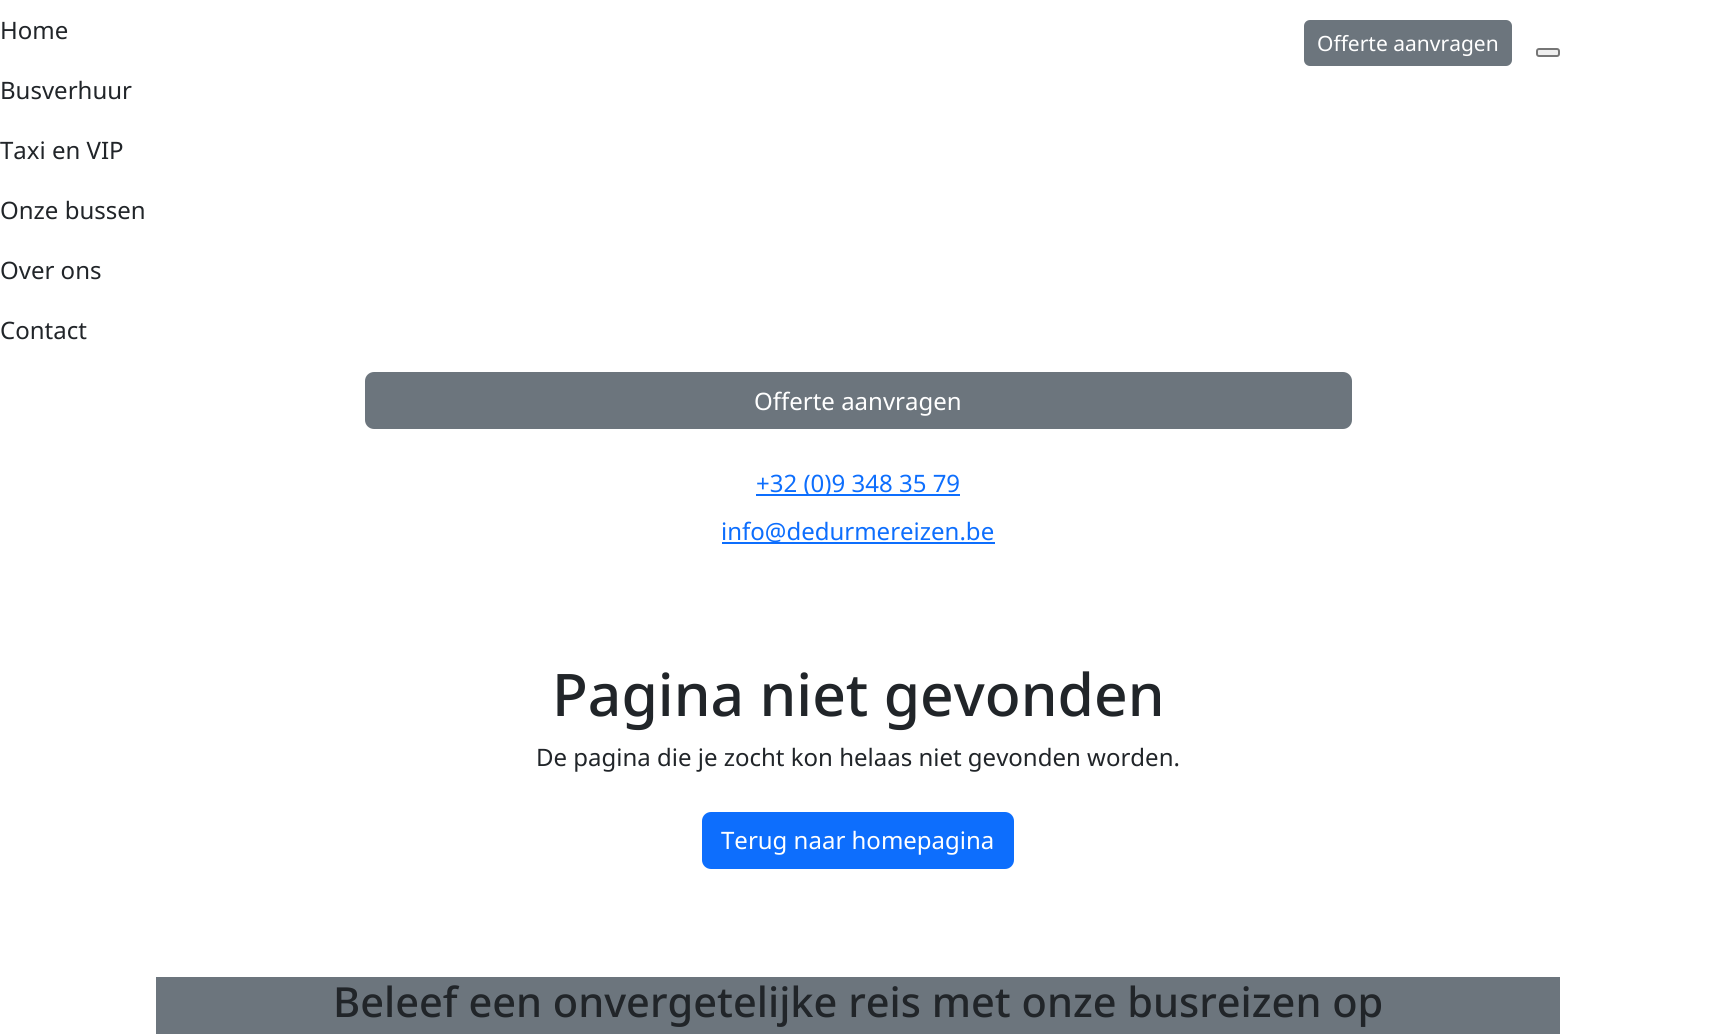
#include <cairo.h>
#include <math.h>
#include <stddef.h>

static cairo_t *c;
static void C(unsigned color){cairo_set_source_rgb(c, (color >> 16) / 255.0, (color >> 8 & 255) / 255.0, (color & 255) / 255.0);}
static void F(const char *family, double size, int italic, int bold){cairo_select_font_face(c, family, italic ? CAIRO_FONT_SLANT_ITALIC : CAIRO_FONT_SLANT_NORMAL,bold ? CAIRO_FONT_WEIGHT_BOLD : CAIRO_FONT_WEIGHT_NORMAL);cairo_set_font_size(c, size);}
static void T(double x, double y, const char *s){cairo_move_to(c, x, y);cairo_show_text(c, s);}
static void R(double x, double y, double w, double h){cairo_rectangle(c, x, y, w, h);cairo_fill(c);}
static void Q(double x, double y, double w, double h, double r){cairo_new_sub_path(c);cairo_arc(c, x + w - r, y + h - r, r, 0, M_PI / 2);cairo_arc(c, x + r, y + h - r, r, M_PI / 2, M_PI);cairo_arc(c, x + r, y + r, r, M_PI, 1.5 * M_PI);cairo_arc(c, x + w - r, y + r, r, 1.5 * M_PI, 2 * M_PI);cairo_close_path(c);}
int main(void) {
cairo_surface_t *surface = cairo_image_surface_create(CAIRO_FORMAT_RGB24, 1716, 1034);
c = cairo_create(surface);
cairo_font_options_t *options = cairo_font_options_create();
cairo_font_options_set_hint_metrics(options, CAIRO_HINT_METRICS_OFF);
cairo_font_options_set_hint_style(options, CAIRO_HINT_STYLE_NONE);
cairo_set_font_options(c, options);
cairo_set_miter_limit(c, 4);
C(0xffffff);
cairo_paint(c);
F("Noto Sans",24,0,0);
C(0x212529);
T(0,39,"Home");
T(0,99,"Busverhuur");
T(0,159,"Taxi en VIP");
T(0,219,"Onze bussen");
T(0,279,"Over ons");
T(0,339,"Contact");
C(0x6c757d);
Q(366,373,985,55,8);
cairo_fill_preserve(c);
cairo_stroke(c);
C(0xffffff);
T(754,410,"Offerte aanvragen");
C(0x0d6efd);
R(756,494,204,2);
T(756,492,"+32 (0)9 348 35 79");
R(722,542,273,2);
T(721,540,"info@dedurmereizen.be");
C(0x6c757d);
Q(1305,21,206,44,5);
cairo_fill_preserve(c);
cairo_stroke(c);
F("Noto Sans",21,0,0);
C(0xffffff);
T(1317,51,"Offerte aanvragen");
C(0xefefef);
Q(1537,49,22,7,2);
cairo_fill_preserve(c);
C(0x767676);
cairo_stroke(c);
F("Noto Sans Medium",58.75,0,0);
C(0x212529);
T(552,716,"Pagina niet gevonden");
F("Noto Sans",24,0,0);
T(536,766,"De pagina die je zocht kon helaas niet gevonden worden.");
C(0x0d6efd);
Q(703,813,310,55,8);
cairo_fill_preserve(c);
cairo_stroke(c);
C(0xffffff);
T(721,849,"Terug naar homepagina");
C(0x6c757d);
R(156,977,1404,57);
F("Noto Sans Medium",41.5,0,0);
C(0x212529);
T(333,1017,"Beleef een onvergetelijke reis met onze busreizen op");
cairo_surface_write_to_png(surface, "o.png");
cairo_font_options_destroy(options);
cairo_destroy(c);
cairo_surface_destroy(surface);
return 0;
}
